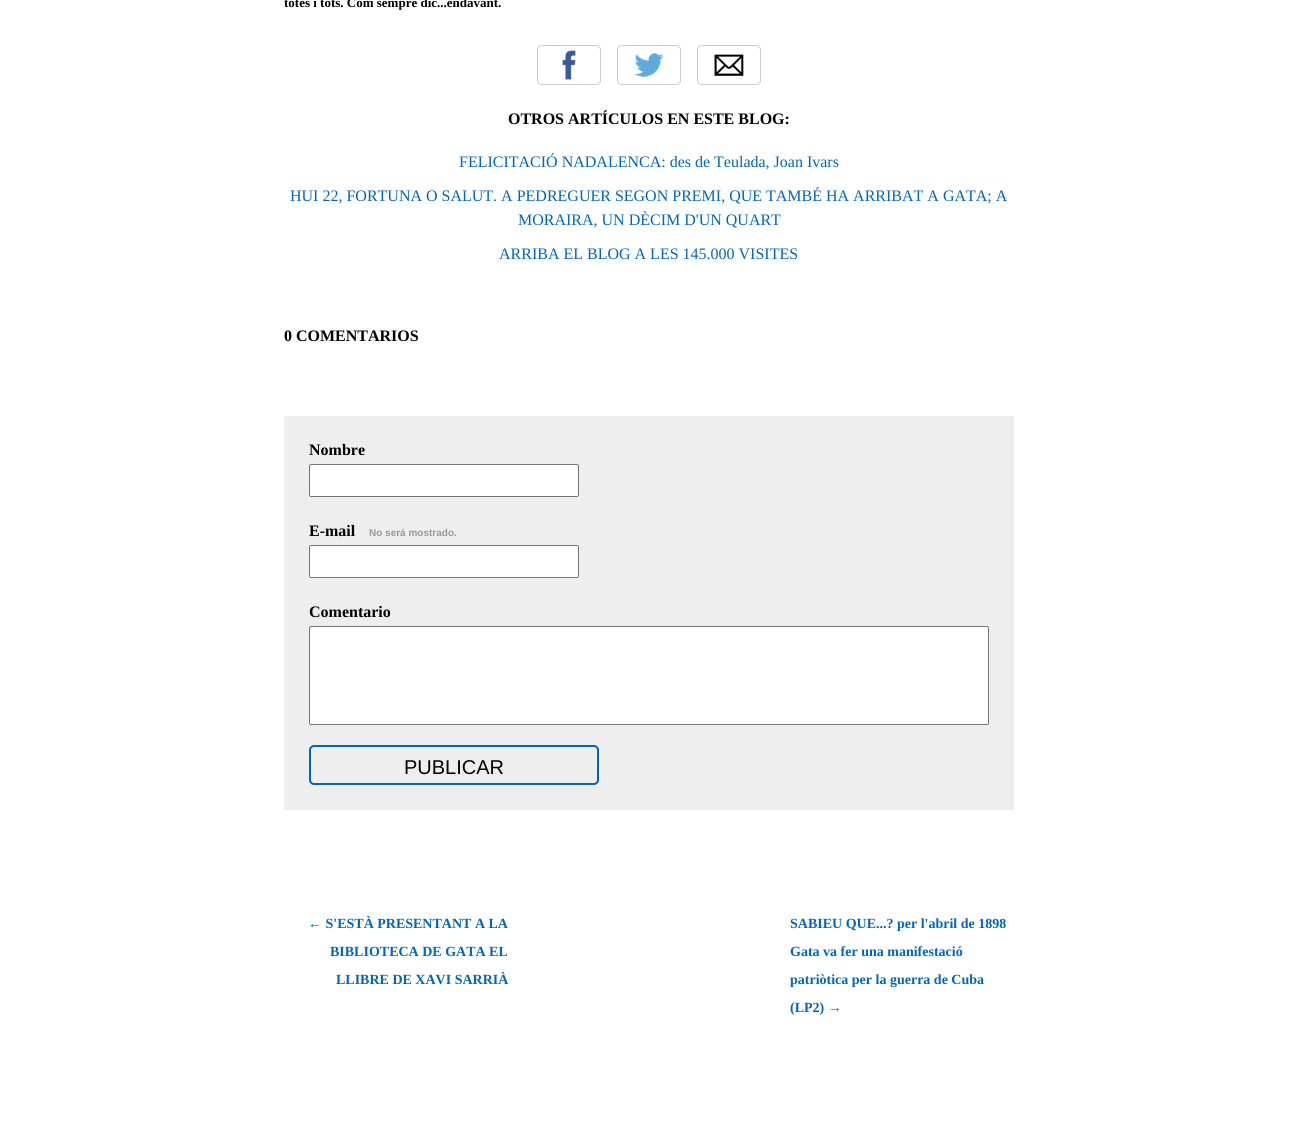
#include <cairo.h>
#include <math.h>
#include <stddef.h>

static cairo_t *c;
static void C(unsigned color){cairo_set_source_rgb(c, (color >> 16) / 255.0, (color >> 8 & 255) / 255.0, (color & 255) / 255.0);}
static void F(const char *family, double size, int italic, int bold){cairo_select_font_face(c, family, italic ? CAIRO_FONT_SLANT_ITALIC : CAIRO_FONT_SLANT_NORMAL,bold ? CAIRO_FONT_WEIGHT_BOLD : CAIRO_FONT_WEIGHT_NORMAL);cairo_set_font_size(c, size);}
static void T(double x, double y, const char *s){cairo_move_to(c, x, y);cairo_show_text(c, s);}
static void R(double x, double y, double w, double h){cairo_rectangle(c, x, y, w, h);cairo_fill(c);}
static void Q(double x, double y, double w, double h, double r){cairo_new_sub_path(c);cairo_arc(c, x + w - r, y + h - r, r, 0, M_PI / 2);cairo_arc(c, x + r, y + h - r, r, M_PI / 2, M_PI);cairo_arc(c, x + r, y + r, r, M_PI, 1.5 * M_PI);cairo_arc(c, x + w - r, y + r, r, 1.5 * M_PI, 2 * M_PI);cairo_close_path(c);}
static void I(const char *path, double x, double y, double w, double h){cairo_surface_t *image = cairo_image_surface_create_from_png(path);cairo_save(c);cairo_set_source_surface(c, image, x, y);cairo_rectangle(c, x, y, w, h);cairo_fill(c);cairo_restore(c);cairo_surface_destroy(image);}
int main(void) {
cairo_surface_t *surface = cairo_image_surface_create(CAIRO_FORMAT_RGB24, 1298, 1146);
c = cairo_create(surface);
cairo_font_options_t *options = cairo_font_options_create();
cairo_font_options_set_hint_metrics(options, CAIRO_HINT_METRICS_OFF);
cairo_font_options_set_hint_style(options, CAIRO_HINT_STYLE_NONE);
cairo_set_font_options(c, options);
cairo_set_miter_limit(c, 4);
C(0xffffff);
cairo_paint(c);
F("Liberation Serif",13,0,1);
C(0x000000);
T(284,7,"totes i tots. Com sempre dic...endavant.");
I("1.png",562,50,14,30);
Q(537.5,45.5,63,39,4.5);
C(0xcccccc);
cairo_set_line_width(c,1);
cairo_stroke(c);
I("2.png",634,53,30,24);
Q(617.5,45.5,63,39,4.5);
cairo_stroke(c);
I("3.png",714,54,30,22);
Q(697.5,45.5,63,39,4.5);
cairo_stroke(c);
F("Liberation Serif",16,0,1);
C(0x000000);
T(508,124,"OTROS ARTÍCULOS EN ESTE BLOG:");
F("Liberation Serif",16,0,0);
C(0x0066bb);
T(459,167,"FELICITACIÓ NADALENCA: des de Teulada, Joan Ivars");
T(290,201,"HUI 22, FORTUNA O SALUT. A PEDREGUER SEGON PREMI, QUE TAMBÉ HA ARRIBAT A GATA; A");
T(518,225,"MORAIRA, UN DÈCIM D'UN QUART");
T(499,259,"ARRIBA EL BLOG A LES 145.000 VISITES");
F("Liberation Serif",16,0,1);
C(0x000000);
T(284,341,"0 COMENTARIOS");
C(0xeeeeee);
R(284,416,730,394);
C(0x000000);
T(309,455,"Nombre");
C(0xffffff);
Q(309.5,464.5,269,32,1.5);
cairo_fill_preserve(c);
C(0x767676);
cairo_stroke(c);
C(0x000000);
T(309,536,"E-mail");
F("Liberation Sans",10,0,1);
C(0x999999);
T(369,536,"No será mostrado.");
C(0xffffff);
Q(309.5,545.5,269,32,1.5);
cairo_fill_preserve(c);
C(0x767676);
cairo_stroke(c);
F("Liberation Serif",16,0,1);
C(0x000000);
T(309,617,"Comentario");
C(0xffffff);
Q(309.5,626.5,679,98,1.5);
cairo_fill_preserve(c);
C(0x767676);
cairo_stroke(c);
Q(310,746,288,38,4);
C(0x0066bb);
cairo_set_line_width(c,2);
cairo_stroke(c);
F("Liberation Sans",20,0,0);
C(0x000000);
T(404,774,"PUBLICAR");
F("Liberation Serif",14,0,1);
C(0x0066bb);
T(308,928,"← S'ESTÀ PRESENTANT A LA");
T(330,956,"BIBLIOTECA DE GATA EL");
T(336,984,"LLIBRE DE XAVI SARRIÀ");
T(790,928,"SABIEU QUE...? per l'abril de 1898");
T(790,956,"Gata va fer una manifestació");
T(790,984,"patriòtica per la guerra de Cuba");
T(790,1012,"(LP2) →");
cairo_surface_write_to_png(surface, "o.png");
cairo_font_options_destroy(options);
cairo_destroy(c);
cairo_surface_destroy(surface);
return 0;
}
